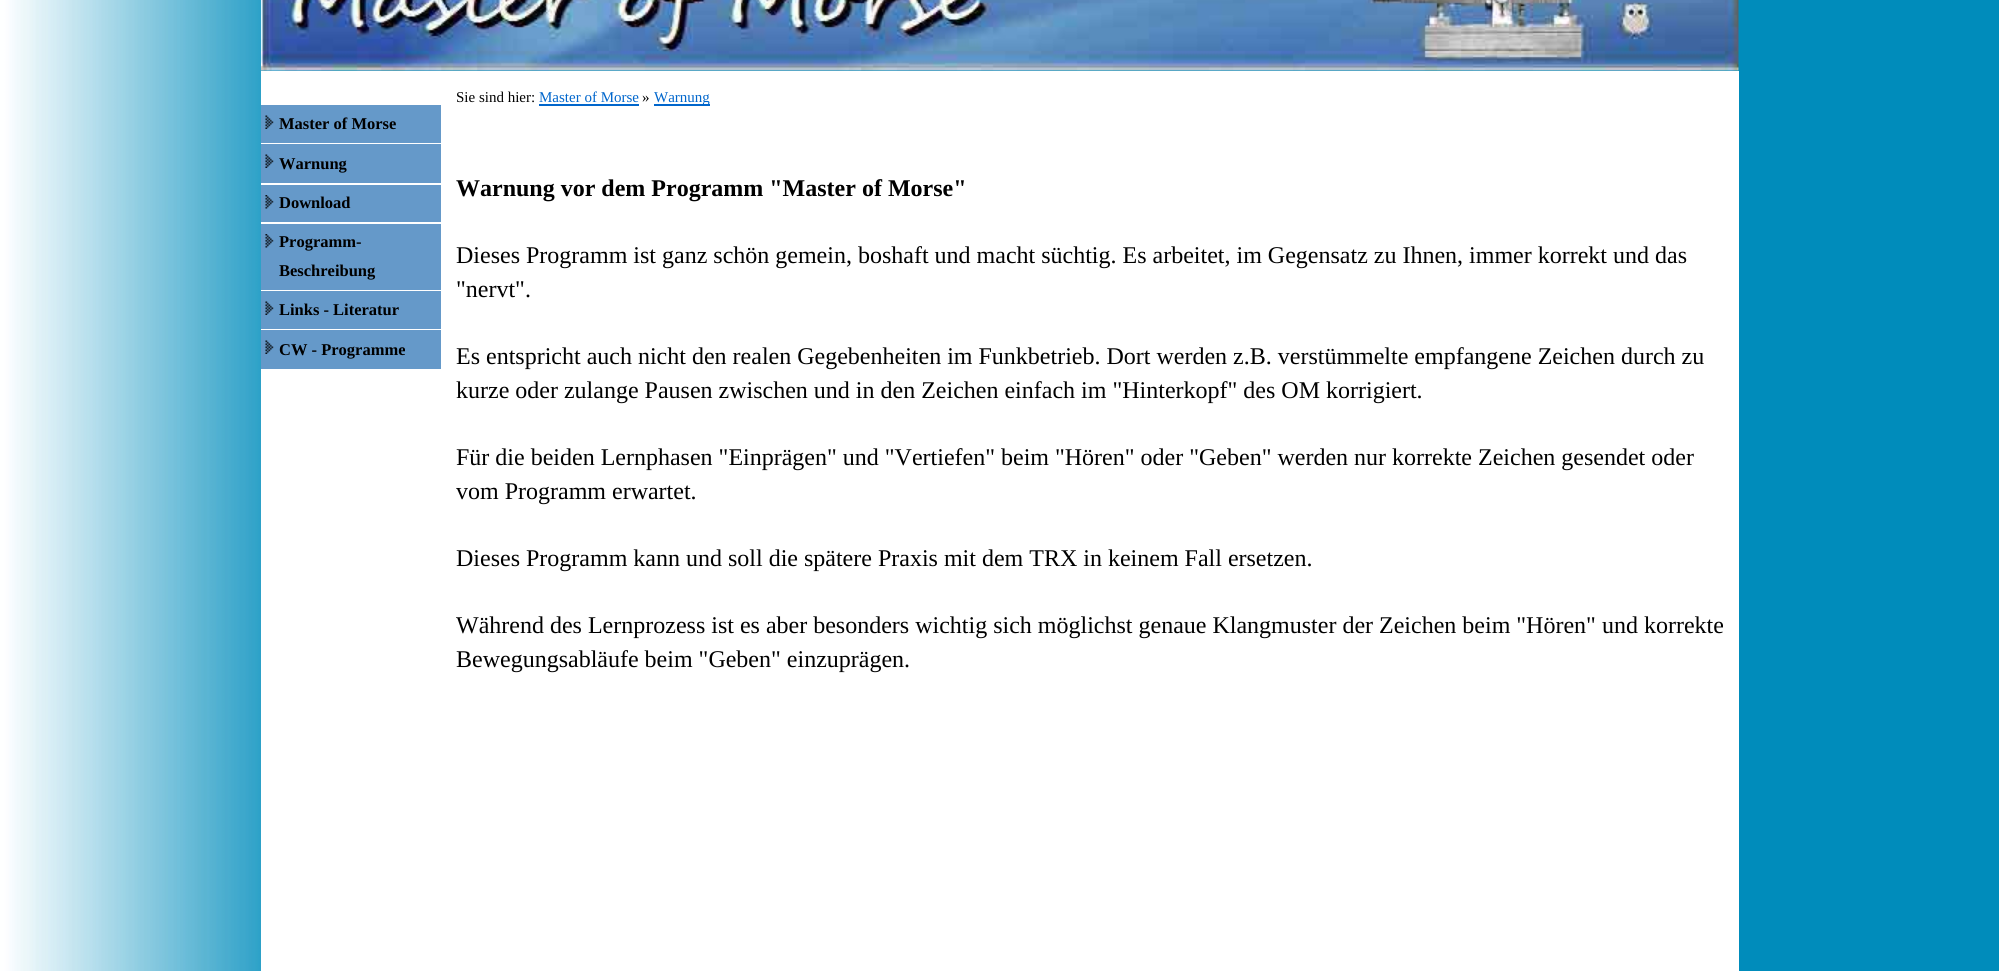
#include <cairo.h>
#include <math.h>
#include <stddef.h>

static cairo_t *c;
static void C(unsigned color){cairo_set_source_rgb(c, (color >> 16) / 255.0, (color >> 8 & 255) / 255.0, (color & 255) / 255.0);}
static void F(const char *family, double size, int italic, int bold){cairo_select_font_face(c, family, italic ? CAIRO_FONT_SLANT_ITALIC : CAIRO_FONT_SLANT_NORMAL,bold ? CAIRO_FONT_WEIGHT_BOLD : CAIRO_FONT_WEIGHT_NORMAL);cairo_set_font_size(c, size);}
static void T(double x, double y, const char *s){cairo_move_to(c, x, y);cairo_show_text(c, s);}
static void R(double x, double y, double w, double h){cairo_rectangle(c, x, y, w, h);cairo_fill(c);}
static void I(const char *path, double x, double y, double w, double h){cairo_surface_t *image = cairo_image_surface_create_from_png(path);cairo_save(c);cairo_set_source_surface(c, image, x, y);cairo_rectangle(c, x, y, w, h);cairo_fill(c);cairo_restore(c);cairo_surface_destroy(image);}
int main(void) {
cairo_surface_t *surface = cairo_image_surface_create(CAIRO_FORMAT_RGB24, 1999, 971);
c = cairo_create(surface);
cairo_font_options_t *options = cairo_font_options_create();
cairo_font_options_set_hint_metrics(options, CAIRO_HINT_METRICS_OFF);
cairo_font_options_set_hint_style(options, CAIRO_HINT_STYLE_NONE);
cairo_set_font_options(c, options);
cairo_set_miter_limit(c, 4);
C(0x008cbb);
cairo_paint(c);
I("1.png",0,0,312,971);
I("2.png",261,0,1478,71);
C(0xffffff);
R(261,71,1478,900);
C(0x6599c9);
R(261,105,180,38);
I("3.png",265,115,9,14);
F("Liberation Serif",16.5,0,1);
C(0x000000);
T(279,129,"Master of Morse");
C(0x6599c9);
R(261,144,180,39);
I("3.png",265,154,9,14);
C(0x000000);
T(279,169,"Warnung");
C(0x6599c9);
R(261,185,180,37);
I("4.png",265,195,9,14);
C(0x000000);
T(279,208,"Download");
C(0x6599c9);
R(261,224,180,66);
I("4.png",265,234,9,14);
C(0x000000);
T(279,247,"Programm-");
T(279,276,"Beschreibung");
C(0x6599c9);
R(261,291,180,38);
I("3.png",265,301,9,14);
C(0x000000);
T(279,315,"Links - Literatur");
C(0x6599c9);
R(261,330,180,39);
I("3.png",265,340,9,14);
C(0x000000);
T(279,355,"CW - Programme");
F("Liberation Serif",15,0,0);
T(456,102,"Sie sind hier:");
C(0x0066cc);
T(539,102,"Master of Morse");
R(539,104,100,2);
C(0x000000);
T(642,102,"»");
C(0x0066cc);
R(654,104,56,2);
T(654,102,"Warnung");
F("Liberation Serif",24,0,1);
C(0x000000);
T(456,196,"Warnung vor dem Programm \"Master of Morse\"");
F("Liberation Serif",24,0,0);
T(456,263,"Dieses Programm ist ganz schön gemein, boshaft und macht süchtig. Es arbeitet, im Gegensatz zu Ihnen, immer korrekt und das");
T(456,297,"\"nervt\".");
T(456,364,"Es entspricht auch nicht den realen Gegebenheiten im Funkbetrieb. Dort werden z.B. verstümmelte empfangene Zeichen durch zu");
T(456,398,"kurze oder zulange Pausen zwischen und in den Zeichen einfach im \"Hinterkopf\" des OM korrigiert.");
T(456,465,"Für die beiden Lernphasen \"Einprägen\" und \"Vertiefen\" beim \"Hören\" oder \"Geben\" werden nur korrekte Zeichen gesendet oder");
T(456,499,"vom Programm erwartet.");
T(456,566,"Dieses Programm kann und soll die spätere Praxis mit dem TRX in keinem Fall ersetzen.");
T(456,633,"Während des Lernprozess ist es aber besonders wichtig sich möglichst genaue Klangmuster der Zeichen beim \"Hören\" und korrekte");
T(456,667,"Bewegungsabläufe beim \"Geben\" einzuprägen.");
cairo_surface_write_to_png(surface, "o.png");
cairo_font_options_destroy(options);
cairo_destroy(c);
cairo_surface_destroy(surface);
return 0;
}
